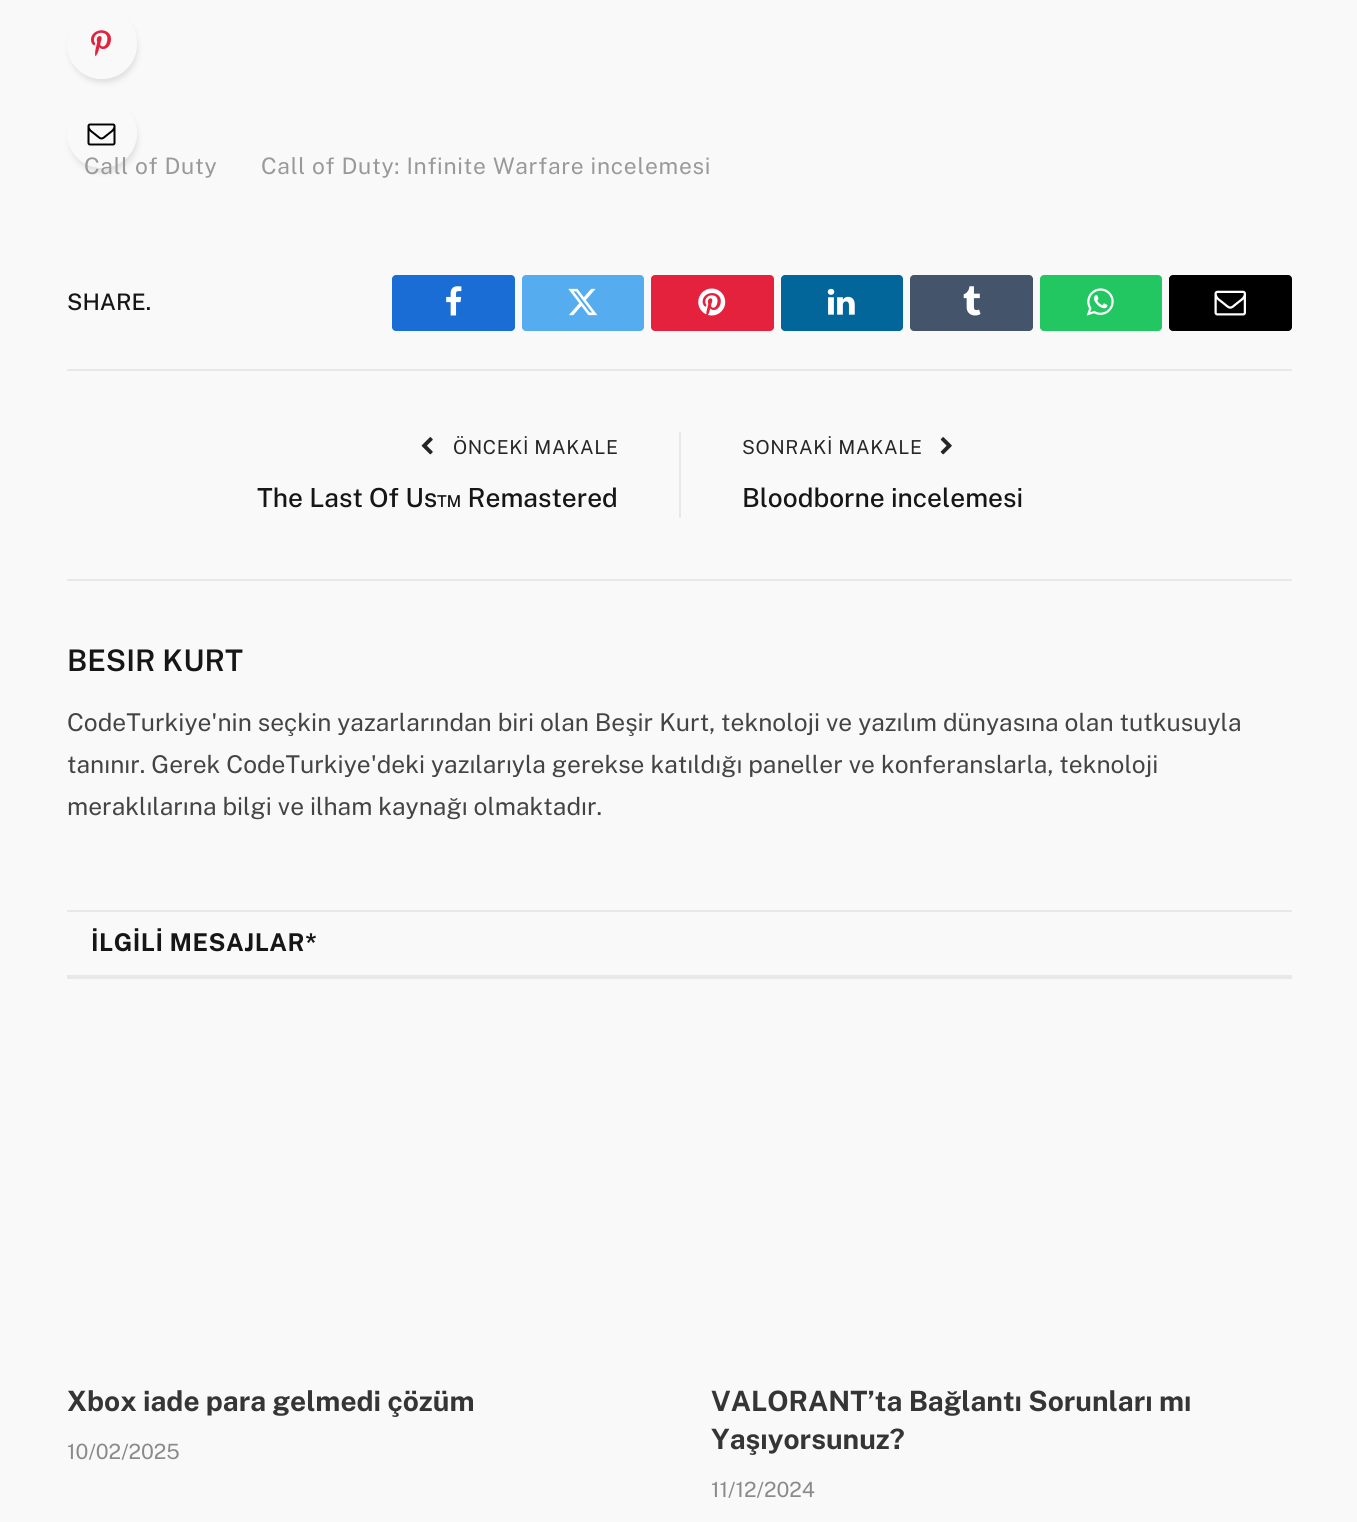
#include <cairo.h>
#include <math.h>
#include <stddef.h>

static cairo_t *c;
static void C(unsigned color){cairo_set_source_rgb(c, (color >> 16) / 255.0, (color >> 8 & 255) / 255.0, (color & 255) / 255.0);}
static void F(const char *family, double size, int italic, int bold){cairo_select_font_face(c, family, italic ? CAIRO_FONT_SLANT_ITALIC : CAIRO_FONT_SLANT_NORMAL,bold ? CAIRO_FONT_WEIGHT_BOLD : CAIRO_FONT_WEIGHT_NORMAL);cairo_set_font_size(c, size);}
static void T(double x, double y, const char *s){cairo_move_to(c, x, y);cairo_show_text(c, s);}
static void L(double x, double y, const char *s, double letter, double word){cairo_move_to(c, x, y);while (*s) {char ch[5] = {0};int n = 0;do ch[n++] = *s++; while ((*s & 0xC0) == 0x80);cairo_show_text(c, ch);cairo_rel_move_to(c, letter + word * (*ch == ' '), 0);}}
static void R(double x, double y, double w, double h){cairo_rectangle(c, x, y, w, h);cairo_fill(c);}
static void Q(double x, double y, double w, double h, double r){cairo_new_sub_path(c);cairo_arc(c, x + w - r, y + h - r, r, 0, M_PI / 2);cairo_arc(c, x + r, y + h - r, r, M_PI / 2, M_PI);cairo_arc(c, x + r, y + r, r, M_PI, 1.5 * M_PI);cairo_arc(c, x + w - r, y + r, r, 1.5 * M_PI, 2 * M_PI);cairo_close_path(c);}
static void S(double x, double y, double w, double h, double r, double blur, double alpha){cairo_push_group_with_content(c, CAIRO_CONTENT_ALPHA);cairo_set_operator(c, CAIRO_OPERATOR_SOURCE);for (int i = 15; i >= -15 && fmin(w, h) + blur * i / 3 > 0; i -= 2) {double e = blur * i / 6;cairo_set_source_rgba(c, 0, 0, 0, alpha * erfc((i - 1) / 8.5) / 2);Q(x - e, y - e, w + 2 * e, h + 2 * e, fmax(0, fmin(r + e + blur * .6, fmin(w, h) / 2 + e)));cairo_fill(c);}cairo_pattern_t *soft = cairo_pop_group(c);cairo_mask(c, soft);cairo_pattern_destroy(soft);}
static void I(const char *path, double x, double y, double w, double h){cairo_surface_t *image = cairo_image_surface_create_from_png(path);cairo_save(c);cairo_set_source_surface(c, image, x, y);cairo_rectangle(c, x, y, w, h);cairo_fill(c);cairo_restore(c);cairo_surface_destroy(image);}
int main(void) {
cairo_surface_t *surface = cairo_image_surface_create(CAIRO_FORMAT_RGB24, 1357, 1522);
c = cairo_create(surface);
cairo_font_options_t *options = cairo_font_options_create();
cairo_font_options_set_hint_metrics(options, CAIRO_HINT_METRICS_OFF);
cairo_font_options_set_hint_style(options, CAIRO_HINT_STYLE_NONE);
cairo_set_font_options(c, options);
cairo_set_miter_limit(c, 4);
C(0xf9f9f9);
cairo_paint(c);
cairo_save(c);
cairo_set_fill_rule(c,CAIRO_FILL_RULE_EVEN_ODD);
cairo_new_path(c);
cairo_move_to(c,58,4);
cairo_line_to(c,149,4);
cairo_line_to(c,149,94);
cairo_line_to(c,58,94);
cairo_close_path(c);
cairo_move_to(c,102,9);
cairo_curve_to(c,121.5,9,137,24.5,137,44);
cairo_curve_to(c,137,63.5,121.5,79,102,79);
cairo_curve_to(c,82.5,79,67,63.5,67,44);
cairo_curve_to(c,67,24.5,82.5,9,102,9);
cairo_close_path(c);
cairo_clip(c);
C(0x000000);
S(70,16,67,66,33,3.5,.12);
cairo_restore(c);
I("1.png",91,30,20,27);
cairo_save(c);
cairo_set_fill_rule(c,CAIRO_FILL_RULE_EVEN_ODD);
cairo_new_path(c);
cairo_move_to(c,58,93);
cairo_line_to(c,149,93);
cairo_line_to(c,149,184);
cairo_line_to(c,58,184);
cairo_close_path(c);
cairo_move_to(c,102,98);
cairo_curve_to(c,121.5,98,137,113.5,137,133);
cairo_curve_to(c,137,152.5,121.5,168,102,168);
cairo_curve_to(c,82.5,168,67,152.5,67,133);
cairo_curve_to(c,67,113.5,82.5,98,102,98);
cairo_close_path(c);
cairo_clip(c);
C(0x000000);
S(70,105,67,67,33.5,3.5,.12);
cairo_restore(c);
I("2.png",87,123,29,23);
F("Public Sans",22.75,0,0);
C(0x999999);
L(84,174,"Call of Duty",.7,0);
L(261,174,"Call of Duty: Infinite Warfare incelemesi",.7,0);
F("Public Sans Medium",22.75,0,0);
C(0x161616);
T(67,310,"SHARE.");
C(0x1a6dd4);
Q(392,275,123,56,4);
cairo_fill(c);
I("3.png",446,286,16,30);
C(0x55acef);
Q(522,275,122,56,4);
cairo_fill(c);
I("4.png",568,288,30,28);
C(0xe4223e);
Q(651,275,123,56,4);
cairo_fill(c);
I("5.png",698,288,28,28);
C(0x02669a);
Q(781,275,122,56,4);
cairo_fill(c);
I("6.png",827,288,28,27);
C(0x44546b);
Q(910,275,123,56,4);
cairo_fill(c);
I("7.png",963,286,18,30);
C(0x23c761);
Q(1040,275,122,56,4);
cairo_fill(c);
I("8.png",1086,288,28,28);
C(0x000000);
Q(1169,275,123,56,4);
cairo_fill(c);
I("9.png",1214,290,32,26);
C(0xe8e8e8);
R(67,369,1225,2);
I("10.png",421,437,12,18);
F("Public Sans",19.25,0,0);
C(0x262626);
L(453,454,"ÖNCEKİ MAKALE",.6,0);
F("Public Sans Medium",26.25,0,0);
C(0x161616);
T(257,507,"The Last Of Us™ Remastered");
C(0xe8e8e8);
R(679,432,2,86);
F("Public Sans",19.25,0,0);
C(0x262626);
L(742,454,"SONRAKİ MAKALE",.6,0);
I("11.png",940,437,12,18);
F("Public Sans Medium",26.25,0,0);
C(0x161616);
T(742,507,"Bloodborne incelemesi");
C(0xe8e8e8);
R(67,579,1225,2);
F("Public Sans SemiBold",29.75,0,0);
C(0x161616);
T(67,671,"BESIR KURT");
F("Public Sans",24.5,0,0);
C(0x444444);
T(67,731,"CodeTurkiye'nin seçkin yazarlarından biri olan Beşir Kurt, teknoloji ve yazılım dünyasına olan tutkusuyla");
T(67,773,"tanınır. Gerek CodeTurkiye'deki yazılarıyla gerekse katıldığı paneller ve konferanslarla, teknoloji");
T(67,815,"meraklılarına bilgi ve ilham kaynağı olmaktadır.");
C(0xe8e8e8);
R(67,910,1225,2);
R(67,975,1225,4);
F("Public Sans",24.5,0,1);
C(0x161616);
L(91,951,"İLGİLİ MESAJLAR*",.5,0);
F("Public Sans",28,0,1);
C(0x353535);
T(67,1411,"Xbox iade para gelmedi çözüm");
F("Public Sans",21,0,0);
C(0x8a8a8a);
T(67,1459,"10/02/2025");
F("Public Sans",28,0,1);
C(0x353535);
T(711,1411,"VALORANT’ta Bağlantı Sorunları mı");
T(711,1449,"Yaşıyorsunuz?");
F("Public Sans",21,0,0);
C(0x8a8a8a);
T(711,1497,"11/12/2024");
cairo_surface_write_to_png(surface, "o.png");
cairo_font_options_destroy(options);
cairo_destroy(c);
cairo_surface_destroy(surface);
return 0;
}
